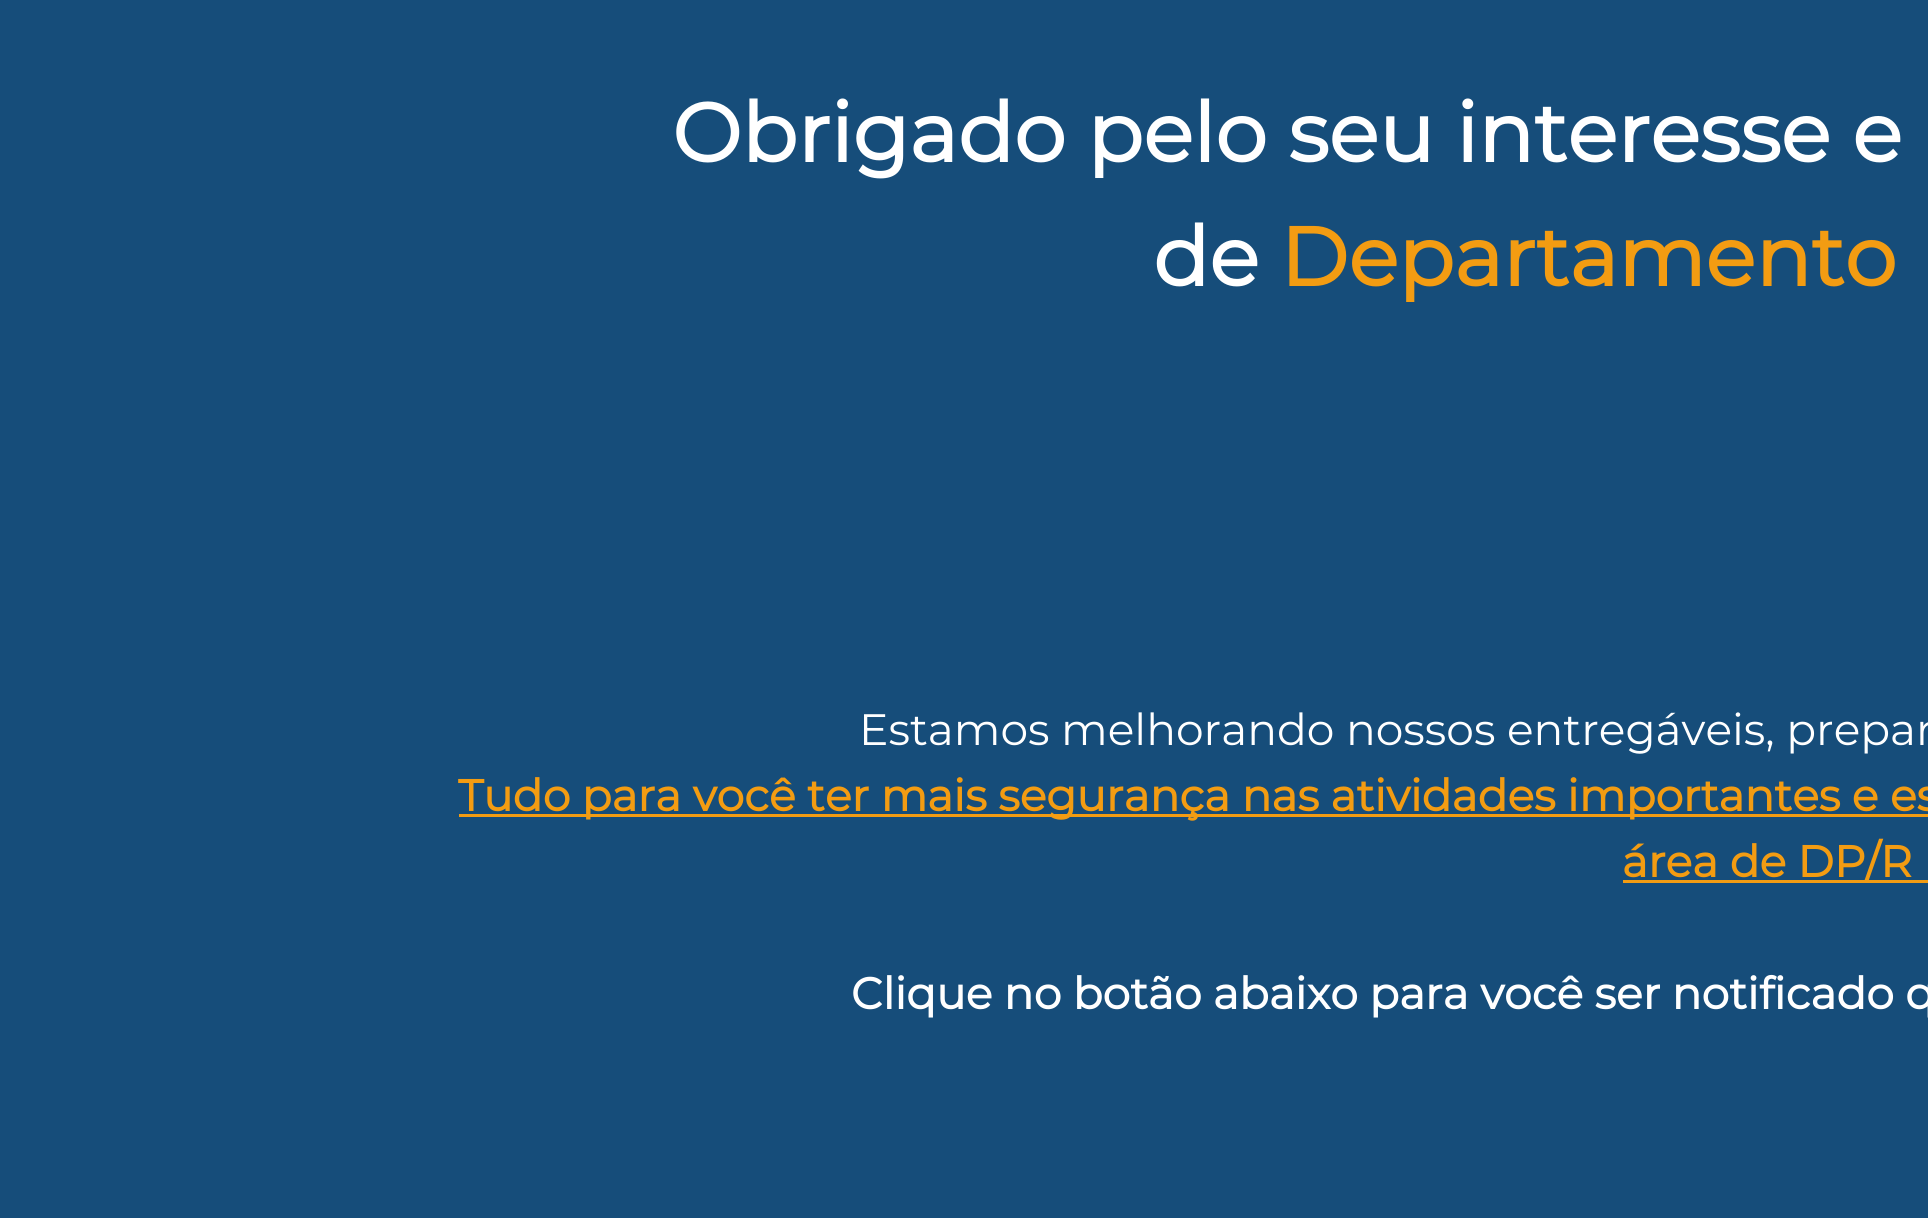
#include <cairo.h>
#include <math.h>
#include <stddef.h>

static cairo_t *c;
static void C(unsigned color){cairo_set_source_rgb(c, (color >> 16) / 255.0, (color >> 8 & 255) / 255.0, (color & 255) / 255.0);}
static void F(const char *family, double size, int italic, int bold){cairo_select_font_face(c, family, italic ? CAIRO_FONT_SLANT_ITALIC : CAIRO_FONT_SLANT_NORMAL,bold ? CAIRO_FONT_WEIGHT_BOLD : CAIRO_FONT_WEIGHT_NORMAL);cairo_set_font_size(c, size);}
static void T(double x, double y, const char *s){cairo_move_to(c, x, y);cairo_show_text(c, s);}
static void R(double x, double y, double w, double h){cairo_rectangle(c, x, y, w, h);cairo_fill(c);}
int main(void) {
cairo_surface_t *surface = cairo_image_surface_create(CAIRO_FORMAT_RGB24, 1928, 1218);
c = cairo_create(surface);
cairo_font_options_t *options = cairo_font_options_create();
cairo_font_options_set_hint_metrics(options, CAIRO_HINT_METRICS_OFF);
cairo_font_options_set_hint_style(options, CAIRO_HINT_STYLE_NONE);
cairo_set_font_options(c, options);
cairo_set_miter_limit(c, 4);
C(0x164d7a);
cairo_paint(c);
F("Montserrat",82.5,0,1);
C(0xffffff);
T(672,162,"Obrigado pelo seu interesse e");
T(1153,286,"de");
C(0xf39c12);
T(1280,286,"Departamento");
F("Montserrat",44,0,0);
C(0xffffff);
T(859,745,"Estamos melhorando nossos entregáveis, prepar");
C(0xf39c12);
R(459,814,1469,3);
F("Montserrat",44,0,1);
T(458,811,"Tudo para você ter mais segurança nas atividades importantes e es");
R(1623,880,305,3);
T(1622,877,"área de DP/R");
C(0xffffff);
T(851,1009,"Clique no botão abaixo para você ser notificado q");
cairo_surface_write_to_png(surface, "o.png");
cairo_font_options_destroy(options);
cairo_destroy(c);
cairo_surface_destroy(surface);
return 0;
}
